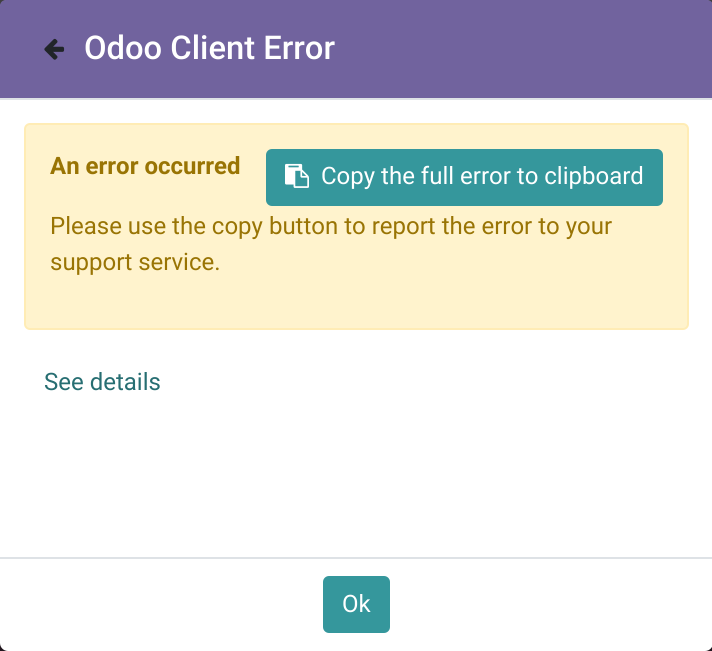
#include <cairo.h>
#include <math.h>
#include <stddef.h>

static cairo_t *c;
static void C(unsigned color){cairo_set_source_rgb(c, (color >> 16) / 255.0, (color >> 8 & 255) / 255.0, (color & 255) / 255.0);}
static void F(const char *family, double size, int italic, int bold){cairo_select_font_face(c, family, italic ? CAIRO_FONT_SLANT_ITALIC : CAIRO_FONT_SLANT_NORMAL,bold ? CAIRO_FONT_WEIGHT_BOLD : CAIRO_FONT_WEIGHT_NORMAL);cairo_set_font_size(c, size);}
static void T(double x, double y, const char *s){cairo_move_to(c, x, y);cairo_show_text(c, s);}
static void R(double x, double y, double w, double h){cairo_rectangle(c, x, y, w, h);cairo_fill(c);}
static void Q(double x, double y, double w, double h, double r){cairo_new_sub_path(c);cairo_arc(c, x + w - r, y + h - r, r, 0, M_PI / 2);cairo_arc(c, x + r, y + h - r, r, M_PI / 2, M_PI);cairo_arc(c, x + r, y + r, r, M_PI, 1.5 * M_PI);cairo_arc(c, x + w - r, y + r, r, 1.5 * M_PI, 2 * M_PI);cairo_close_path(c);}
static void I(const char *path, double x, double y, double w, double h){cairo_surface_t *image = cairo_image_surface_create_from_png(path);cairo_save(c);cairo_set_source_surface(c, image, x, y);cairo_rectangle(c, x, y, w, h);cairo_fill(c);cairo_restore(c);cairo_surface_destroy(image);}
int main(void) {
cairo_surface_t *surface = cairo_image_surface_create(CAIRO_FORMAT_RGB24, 712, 651);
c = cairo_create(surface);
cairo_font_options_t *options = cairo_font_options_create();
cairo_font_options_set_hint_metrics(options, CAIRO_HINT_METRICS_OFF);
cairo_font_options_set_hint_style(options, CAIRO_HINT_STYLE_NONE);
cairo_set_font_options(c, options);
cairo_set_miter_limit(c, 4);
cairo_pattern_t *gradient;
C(0x404040);
cairo_paint(c);
gradient = cairo_pattern_create_linear(-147,339,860,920);
cairo_pattern_add_color_stop_rgba(gradient,0,0.133,0.09,0.122,1);
cairo_pattern_add_color_stop_rgba(gradient,1,0.118,0.082,0.11,1);
cairo_set_source(c,gradient);
cairo_pattern_destroy(gradient);
R(0,643,712,8);
C(0xffffff);
Q(0,0,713,651,8);
cairo_fill(c);
C(0x71639e);
cairo_new_path(c);
cairo_move_to(c,6,0);
cairo_line_to(c,707,0);
cairo_curve_to(c,710.5,0,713,2.5,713,6);
cairo_line_to(c,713,99);
cairo_line_to(c,0,99);
cairo_line_to(c,0,6);
cairo_curve_to(c,0,2.5,2.5,0,6,0);
cairo_close_path(c);
cairo_fill(c);
C(0xdee2e6);
R(0,98,712,2);
I("1.png",44,38,21,22);
F("Roboto Medium",32.75,0,0);
C(0xffffff);
T(84,59,"Odoo Client Error");
C(0xfff3cd);
Q(25,124,663,205,5);
cairo_fill_preserve(c);
C(0xffecb5);
cairo_stroke(c);
F("Roboto",24,0,1);
C(0x997404);
T(50,174,"An error occurred");
C(0x35979c);
Q(267,150,395,55,5);
cairo_fill_preserve(c);
cairo_stroke(c);
I("2.png",285,163,24,25);
F("Roboto",24,0,0);
C(0xffffff);
T(321,184,"Copy the full error to clipboard");
C(0x997404);
T(50,234,"Please use the copy button to report the error to your");
T(50,270,"support service.");
C(0x276e72);
T(44,390,"See details");
C(0xdee2e6);
R(0,557,712,2);
C(0x35979c);
Q(324,577,65,55,5);
cairo_fill_preserve(c);
cairo_stroke(c);
C(0xffffff);
T(342,612,"Ok");
cairo_surface_write_to_png(surface, "o.png");
cairo_font_options_destroy(options);
cairo_destroy(c);
cairo_surface_destroy(surface);
return 0;
}
